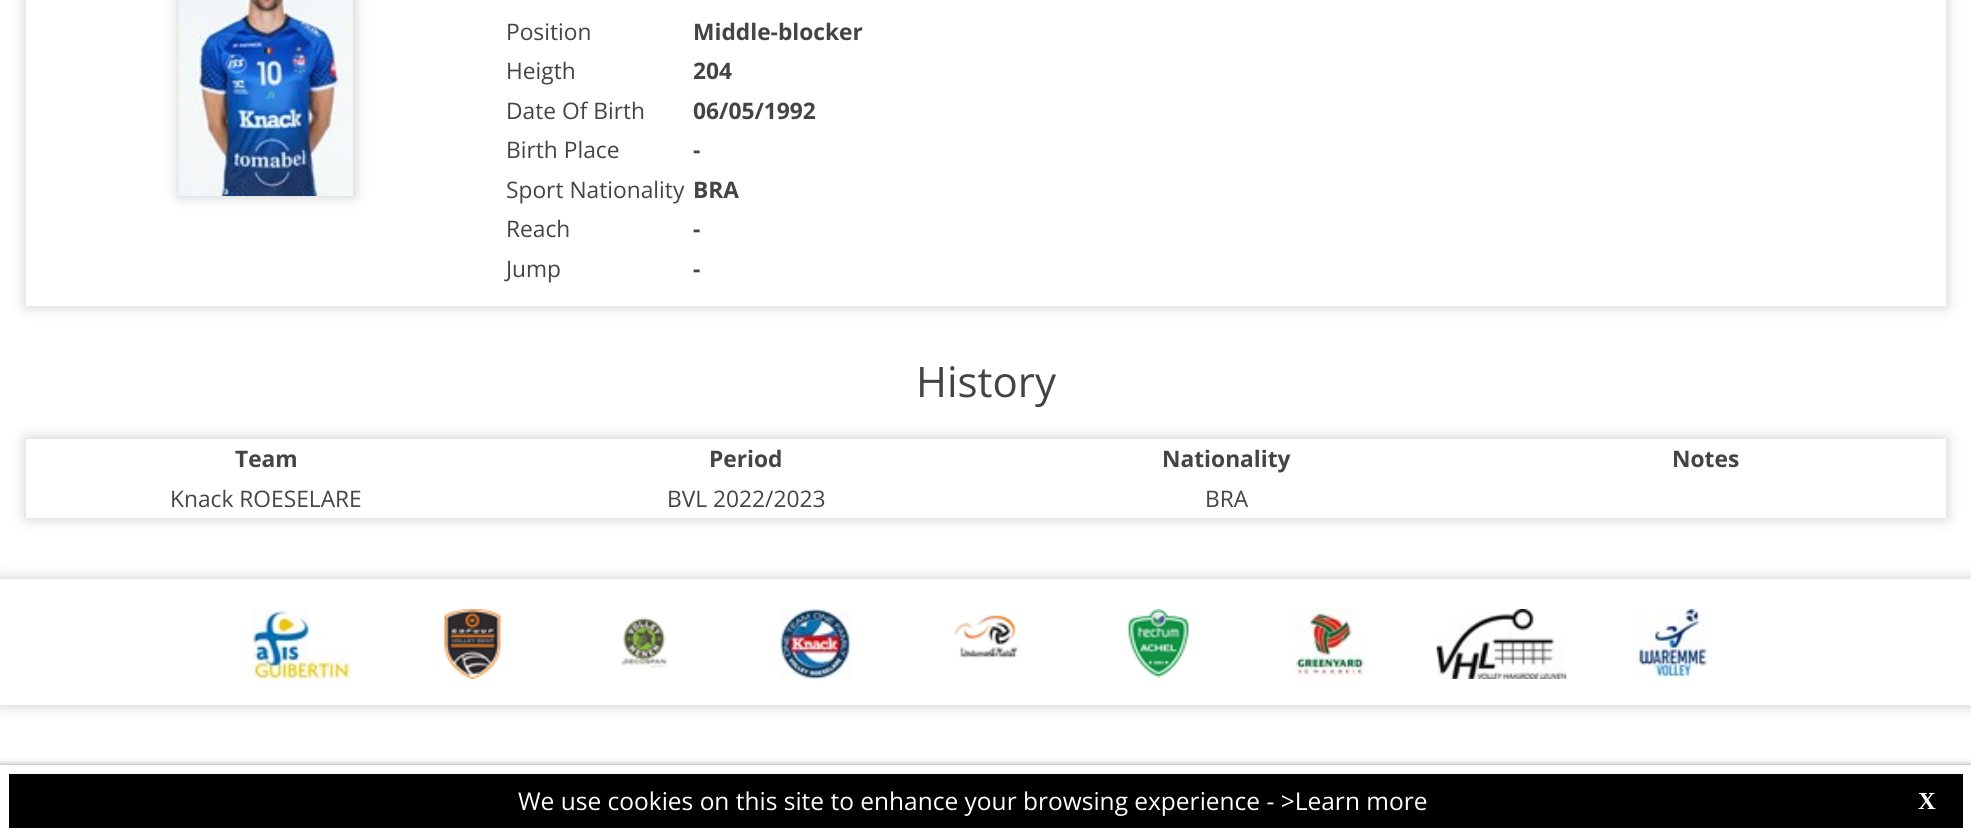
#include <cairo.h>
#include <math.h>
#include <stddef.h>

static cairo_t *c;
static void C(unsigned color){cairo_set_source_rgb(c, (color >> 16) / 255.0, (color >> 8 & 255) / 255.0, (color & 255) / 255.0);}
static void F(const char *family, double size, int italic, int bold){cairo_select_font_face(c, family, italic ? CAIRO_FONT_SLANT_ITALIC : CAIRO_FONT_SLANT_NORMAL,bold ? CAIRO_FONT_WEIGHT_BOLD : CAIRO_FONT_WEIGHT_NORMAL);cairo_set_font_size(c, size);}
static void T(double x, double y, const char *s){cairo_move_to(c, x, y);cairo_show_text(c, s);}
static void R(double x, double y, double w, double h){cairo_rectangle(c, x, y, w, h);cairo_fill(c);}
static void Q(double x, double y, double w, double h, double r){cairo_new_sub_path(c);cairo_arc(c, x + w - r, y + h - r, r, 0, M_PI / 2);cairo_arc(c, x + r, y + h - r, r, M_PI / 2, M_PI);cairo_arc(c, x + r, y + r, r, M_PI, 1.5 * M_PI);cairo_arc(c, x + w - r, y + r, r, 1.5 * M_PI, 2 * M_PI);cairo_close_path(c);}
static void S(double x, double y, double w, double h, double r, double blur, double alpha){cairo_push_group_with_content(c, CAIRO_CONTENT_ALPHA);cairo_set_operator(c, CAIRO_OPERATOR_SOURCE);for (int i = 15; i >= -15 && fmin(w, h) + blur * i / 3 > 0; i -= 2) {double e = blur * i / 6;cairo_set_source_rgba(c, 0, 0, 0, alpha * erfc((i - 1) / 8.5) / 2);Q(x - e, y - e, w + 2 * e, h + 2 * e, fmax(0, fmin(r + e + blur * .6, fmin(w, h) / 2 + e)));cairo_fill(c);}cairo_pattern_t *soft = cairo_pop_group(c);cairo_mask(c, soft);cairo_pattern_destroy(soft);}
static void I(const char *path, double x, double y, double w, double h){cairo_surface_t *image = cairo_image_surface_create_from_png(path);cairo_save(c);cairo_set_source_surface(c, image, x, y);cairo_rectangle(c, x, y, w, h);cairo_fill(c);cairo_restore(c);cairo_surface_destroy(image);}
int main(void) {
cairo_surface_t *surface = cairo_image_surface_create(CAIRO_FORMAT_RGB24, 1971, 835);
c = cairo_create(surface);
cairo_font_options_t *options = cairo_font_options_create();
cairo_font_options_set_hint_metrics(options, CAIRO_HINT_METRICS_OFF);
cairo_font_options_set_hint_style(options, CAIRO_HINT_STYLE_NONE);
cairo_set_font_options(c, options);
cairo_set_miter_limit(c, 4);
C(0xffffff);
cairo_paint(c);
cairo_save(c);
cairo_set_fill_rule(c,CAIRO_FILL_RULE_EVEN_ODD);
cairo_new_path(c);
cairo_move_to(c,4,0);
cairo_line_to(c,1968,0);
cairo_line_to(c,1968,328);
cairo_line_to(c,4,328);
cairo_close_path(c);
cairo_move_to(c,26,-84);
cairo_line_to(c,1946,-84);
cairo_line_to(c,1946,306);
cairo_line_to(c,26,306);
cairo_close_path(c);
cairo_clip(c);
C(0xcccccc);
S(26,-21,1920,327,0,7,1);
cairo_restore(c);
cairo_set_source_rgba(c,1,1,1,0.75);
R(26,0,1,306);
C(0xcccccc);
S(179,-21,175,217,0,7,1);
I("1.png",178,0,175,196);
F("Open Sans",22.75,0,0);
C(0x444444);
T(506,40,"Position");
F("Open Sans",22.75,0,1);
T(693,40,"Middle-blocker");
F("Open Sans",22.75,0,0);
T(506,79,"Heigth");
F("Open Sans",22.75,0,1);
T(693,79,"204");
F("Open Sans",22.75,0,0);
T(506,119,"Date Of Birth");
F("Open Sans",22.75,0,1);
T(693,119,"06/05/1992");
F("Open Sans",22.75,0,0);
T(506,158,"Birth Place");
F("Open Sans",22.75,0,1);
T(693,158,"-");
F("Open Sans",22.75,0,0);
T(506,198,"Sport Nationality");
F("Open Sans",22.75,0,1);
T(693,198,"BRA");
F("Open Sans",22.75,0,0);
T(506,237,"Reach");
F("Open Sans",22.75,0,1);
T(693,237,"-");
F("Open Sans",22.75,0,0);
T(506,277,"Jump");
F("Open Sans",22.75,0,1);
T(693,277,"-");
F("Open Sans",42,0,0);
T(916,397,"History");
cairo_save(c);
cairo_set_fill_rule(c,CAIRO_FILL_RULE_EVEN_ODD);
cairo_new_path(c);
cairo_move_to(c,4,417);
cairo_line_to(c,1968,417);
cairo_line_to(c,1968,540);
cairo_line_to(c,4,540);
cairo_close_path(c);
cairo_move_to(c,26,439);
cairo_line_to(c,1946,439);
cairo_line_to(c,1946,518);
cairo_line_to(c,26,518);
cairo_close_path(c);
cairo_clip(c);
C(0xcccccc);
S(26,439,1920,79,0,7,1);
cairo_restore(c);
cairo_set_source_rgba(c,1,1,1,0.75);
R(26,439,1920,79);
F("Open Sans",22.75,0,1);
C(0x444444);
T(235,467,"Team");
T(709,467,"Period");
T(1162,467,"Nationality");
T(1672,467,"Notes");
F("Open Sans",22.75,0,0);
T(170,507,"Knack ROESELARE");
T(667,507,"BVL 2022/2023");
T(1205,507,"BRA");
cairo_save(c);
cairo_set_fill_rule(c,CAIRO_FILL_RULE_EVEN_ODD);
cairo_new_path(c);
cairo_move_to(c,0,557);
cairo_line_to(c,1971,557);
cairo_line_to(c,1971,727);
cairo_line_to(c,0,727);
cairo_close_path(c);
cairo_move_to(c,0,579);
cairo_line_to(c,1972,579);
cairo_line_to(c,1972,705);
cairo_line_to(c,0,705);
cairo_close_path(c);
cairo_clip(c);
C(0xcccccc);
S(0,579,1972,126,0,7,1);
cairo_restore(c);
cairo_set_source_rgba(c,1,1,1,0.75);
R(0,579,1971,1);
I("2.png",252,609,98,70);
I("3.png",444,609,57,70);
I("4.png",621,617,47,52);
I("5.png",780,609,71,70);
I("6.png",954,614,65,45);
I("7.png",1127,609,63,69);
I("8.png",1295,609,70,70);
I("9.png",1436,609,131,70);
I("10.png",1634,609,78,70);
C(0x999999);
S(0,765,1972,70,0,3.5,1);
C(0x000000);
cairo_rectangle(c,4.5,769.5,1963,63);
cairo_fill_preserve(c);
C(0xffffff);
cairo_set_line_width(c,9);
cairo_stroke(c);
F("Open Sans",24.5,0,0);
T(518,810,"We use cookies on this site to enhance your browsing experience - >Learn more");
F("Liberation Serif",24.5,0,1);
T(1918,809,"X");
cairo_surface_write_to_png(surface, "o.png");
cairo_font_options_destroy(options);
cairo_destroy(c);
cairo_surface_destroy(surface);
return 0;
}
